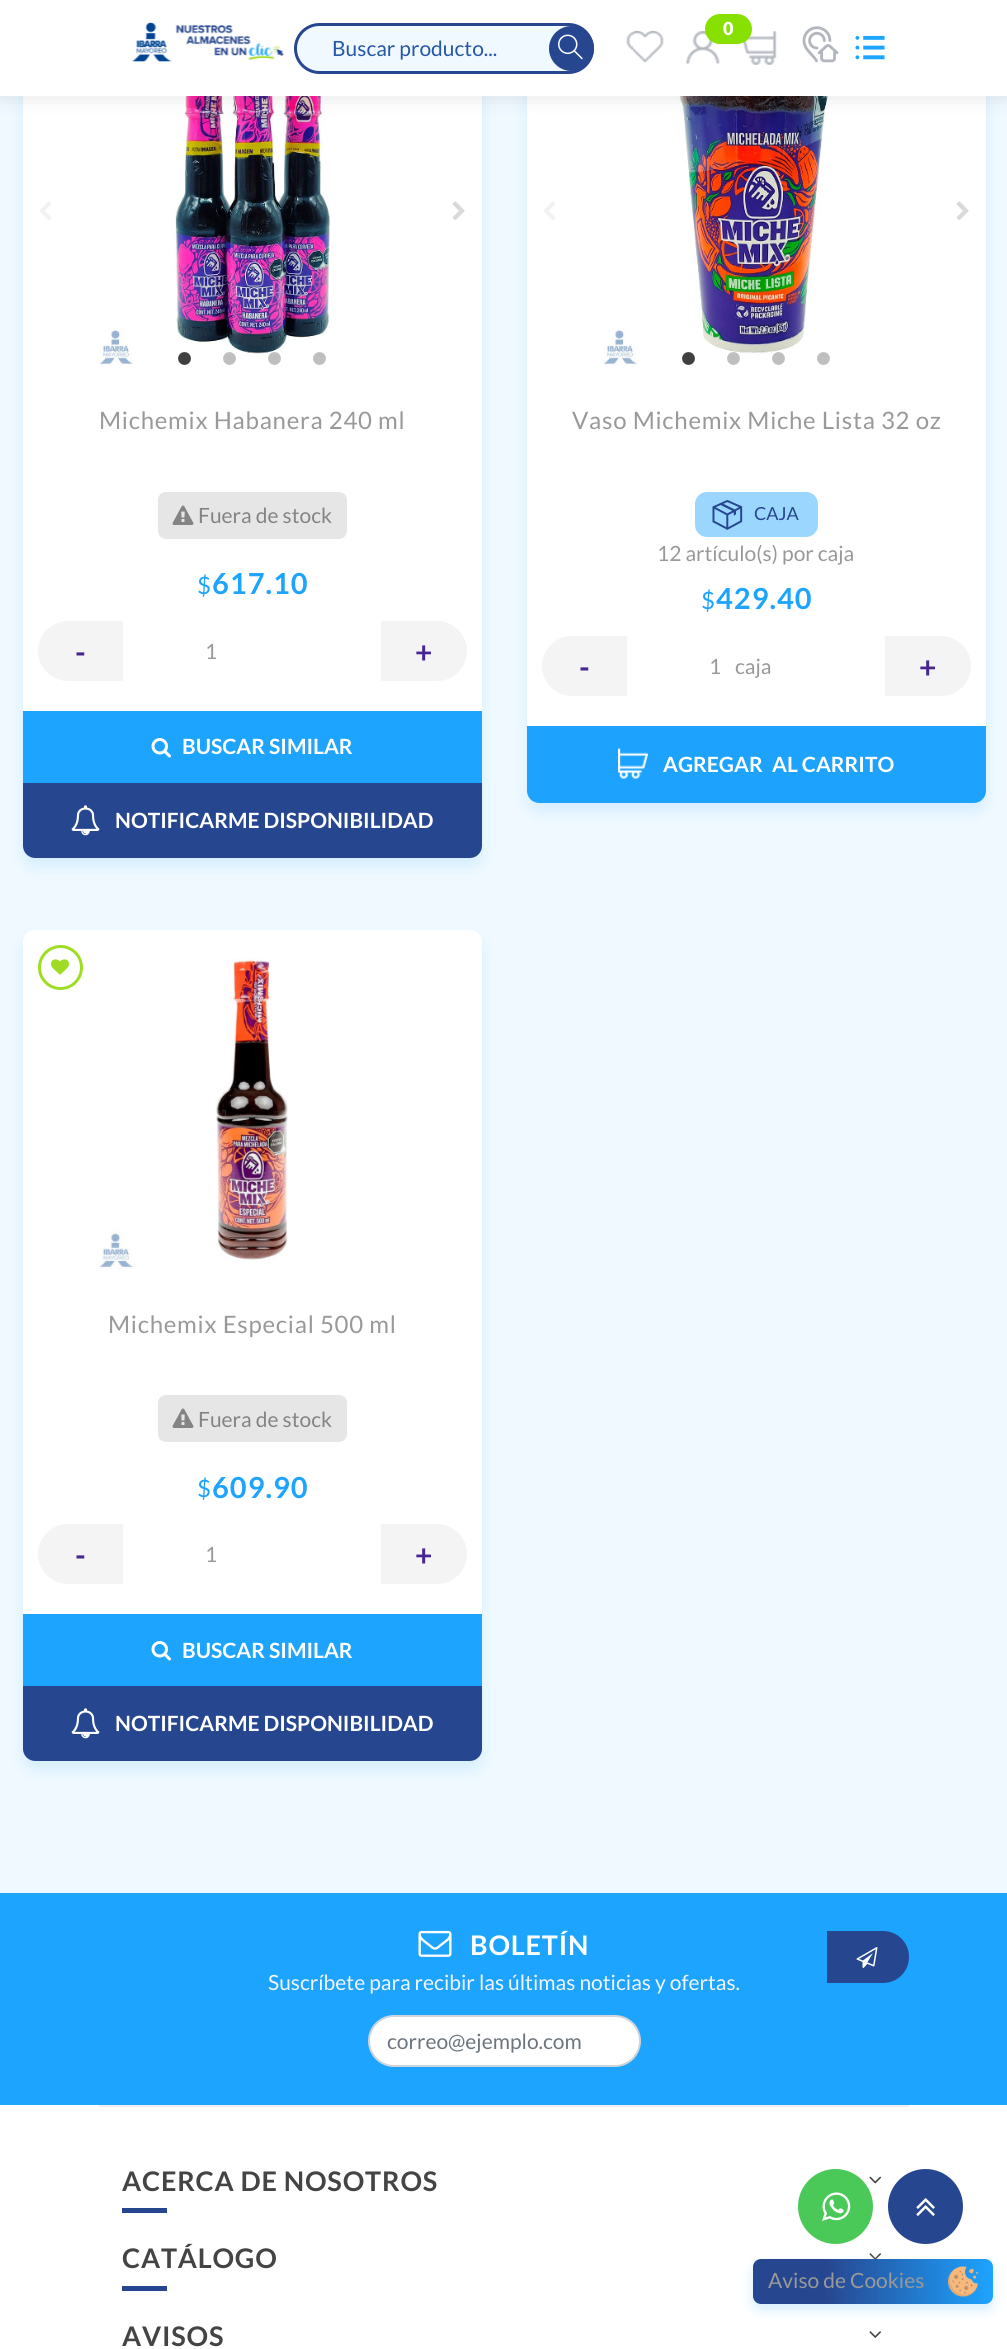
#include <cairo.h>
#include <math.h>
#include <stddef.h>

static cairo_t *c;
static void C(unsigned color){cairo_set_source_rgb(c, (color >> 16) / 255.0, (color >> 8 & 255) / 255.0, (color & 255) / 255.0);}
static void F(const char *family, double size, int italic, int bold){cairo_select_font_face(c, family, italic ? CAIRO_FONT_SLANT_ITALIC : CAIRO_FONT_SLANT_NORMAL,bold ? CAIRO_FONT_WEIGHT_BOLD : CAIRO_FONT_WEIGHT_NORMAL);cairo_set_font_size(c, size);}
static void T(double x, double y, const char *s){cairo_move_to(c, x, y);cairo_show_text(c, s);}
static void L(double x, double y, const char *s, double letter, double word){cairo_move_to(c, x, y);while (*s) {char ch[5] = {0};int n = 0;do ch[n++] = *s++; while ((*s & 0xC0) == 0x80);cairo_show_text(c, ch);cairo_rel_move_to(c, letter + word * (*ch == ' '), 0);}}
static void R(double x, double y, double w, double h){cairo_rectangle(c, x, y, w, h);cairo_fill(c);}
static void Q(double x, double y, double w, double h, double r){cairo_new_sub_path(c);cairo_arc(c, x + w - r, y + h - r, r, 0, M_PI / 2);cairo_arc(c, x + r, y + h - r, r, M_PI / 2, M_PI);cairo_arc(c, x + r, y + r, r, M_PI, 1.5 * M_PI);cairo_arc(c, x + w - r, y + r, r, 1.5 * M_PI, 2 * M_PI);cairo_close_path(c);}
static void S(double x, double y, double w, double h, double r, double blur, double alpha){cairo_push_group_with_content(c, CAIRO_CONTENT_ALPHA);cairo_set_operator(c, CAIRO_OPERATOR_SOURCE);for (int i = 15; i >= -15 && fmin(w, h) + blur * i / 3 > 0; i -= 2) {double e = blur * i / 6;cairo_set_source_rgba(c, 0, 0, 0, alpha * erfc((i - 1) / 8.5) / 2);Q(x - e, y - e, w + 2 * e, h + 2 * e, fmax(0, fmin(r + e + blur * .6, fmin(w, h) / 2 + e)));cairo_fill(c);}cairo_pattern_t *soft = cairo_pop_group(c);cairo_mask(c, soft);cairo_pattern_destroy(soft);}
static void I(const char *path, double x, double y, double w, double h){cairo_surface_t *image = cairo_image_surface_create_from_png(path);cairo_save(c);cairo_set_source_surface(c, image, x, y);cairo_rectangle(c, x, y, w, h);cairo_fill(c);cairo_restore(c);cairo_surface_destroy(image);}
int main(void) {
cairo_surface_t *surface = cairo_image_surface_create(CAIRO_FORMAT_RGB24, 1007, 2349);
c = cairo_create(surface);
cairo_font_options_t *options = cairo_font_options_create();
cairo_font_options_set_hint_metrics(options, CAIRO_HINT_METRICS_OFF);
cairo_font_options_set_hint_style(options, CAIRO_HINT_STYLE_NONE);
cairo_set_font_options(c, options);
cairo_set_miter_limit(c, 4);
cairo_pattern_t *gradient;
C(0xffffff);
cairo_paint(c);
C(0xf0f9ff);
R(0,96,1007,1797);
C(0xd5eeff);
S(23,35,459,832,12,7,1);
C(0xffffff);
Q(23,26,459,832,12);
cairo_fill(c);
I("9.png",99,96,232,270);
C(0xd5eeff);
S(527,35,459,777,12,7,1);
C(0xffffff);
Q(527,26,459,777,12);
cairo_fill(c);
I("18.png",603,96,234,270);
C(0x000000);
S(0,-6,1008,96,0,12,.2);
C(0xffffff);
R(0,0,1007,96);
I("1.png",132,22,152,40);
C(0xf0f9ff);
Q(295.5,24.5,297,48,24);
cairo_fill_preserve(c);
C(0x274690);
cairo_set_line_width(c,3);
cairo_stroke(c);
F("Lato",21,0,0);
C(0x2558a5);
T(332,56,"Buscar producto...");
C(0x274690);
cairo_new_path(c);
cairo_arc(c,571.5,48.5,22.5,0,2 * M_PI);
cairo_fill(c);
I("2.png",558,34,25,26);
I("3.png",626,30,38,33);
I("4.png",686,31,34,33);
I("5.png",742,31,35,34);
C(0x88e000);
Q(705,14,47,30,15);
cairo_fill(c);
F("Lato Black",18,0,0);
C(0xffffff);
T(723,35,"0");
I("6.png",802,26,37,37);
I("7.png",855,35,30,25);
I("8.png",39,201,13,19);
I("10.png",452,201,13,19);
I("11.png",178,352,13,13);
I("12.png",223,352,13,13);
I("13.png",268,352,13,13);
I("14.png",313,352,13,13);
F("Lato",24,0,0);
C(0x999999);
L(99,429,"Michemix Habanera 240 ml",.75,0);
C(0xe6e6e6);
Q(158,492,189,47,8);
cairo_fill(c);
I("15.png",172,505,22,20);
F("Lato",21,0,0);
C(0x848484);
T(198,523,"Fuera de stock");
F("Lato",24,0,0);
C(0x1da4ff);
L(197,594,"$",1,0);
F("Lato",29,0,1);
L(212,594,"617.10",1,0);
C(0xf4f4f4);
cairo_new_path(c);
cairo_move_to(c,68,621);
cairo_line_to(c,123,621);
cairo_line_to(c,123,681);
cairo_line_to(c,68,681);
cairo_curve_to(c,51.5,681,38,667.5,38,651);
cairo_curve_to(c,38,634.5,51.5,621,68,621);
cairo_close_path(c);
cairo_fill(c);
F("Lato",30,0,1);
C(0x472690);
T(75,663,"-");
F("Lato",21,0,0);
C(0x999999);
T(205,659,"1");
C(0xf4f4f4);
cairo_new_path(c);
cairo_move_to(c,381,621);
cairo_line_to(c,437,621);
cairo_curve_to(c,453.5,621,467,634.5,467,651);
cairo_curve_to(c,467,667.5,453.5,681,437,681);
cairo_line_to(c,381,681);
cairo_close_path(c);
cairo_fill(c);
F("Lato",30,0,1);
C(0x472690);
T(415,663,"+");
C(0x1da4ff);
R(23,711,459,72);
I("16.png",151,738,20,20);
F("Lato",21,0,1);
C(0xffffff);
T(182,754,"BUSCAR SIMILAR");
C(0x274690);
cairo_new_path(c);
cairo_move_to(c,23,783);
cairo_line_to(c,482,783);
cairo_line_to(c,482,846);
cairo_curve_to(c,482,852.5,476.5,858,470,858);
cairo_line_to(c,35,858);
cairo_curve_to(c,28.5,858,23,852.5,23,846);
cairo_close_path(c);
cairo_fill(c);
I("17.png",71,805,29,31);
C(0xffffff);
T(115,828,"NOTIFICARME DISPONIBILIDAD");
I("8.png",543,201,13,19);
I("10.png",956,201,13,19);
I("11.png",682,352,13,13);
I("19.png",727,352,13,13);
I("20.png",772,352,13,13);
I("14.png",817,352,13,13);
F("Lato",24,0,0);
C(0x999999);
L(572,429,"Vaso Michemix Miche Lista 32 oz",.75,0);
C(0x9bd6ff);
Q(696.5,493.5,120,42,10.5);
cairo_fill_preserve(c);
cairo_stroke(c);
I("21.png",712,499,31,31);
F("Lato",18,0,0);
C(0x274690);
T(754,520,"CAJA");
F("Lato",21,0,0);
C(0x999999);
T(657,561,"12 artículo(s) por caja");
F("Lato",24,0,0);
C(0x1da4ff);
L(701,609,"$",1,0);
F("Lato",29,0,1);
L(716,609,"429.40",1,0);
C(0xf4f4f4);
cairo_new_path(c);
cairo_move_to(c,572,636);
cairo_line_to(c,627,636);
cairo_line_to(c,627,696);
cairo_line_to(c,572,696);
cairo_curve_to(c,555.5,696,542,682.5,542,666);
cairo_curve_to(c,542,649.5,555.5,636,572,636);
cairo_close_path(c);
cairo_fill(c);
F("Lato",30,0,1);
C(0x472690);
T(579,678,"-");
F("Lato",21,0,0);
C(0x999999);
T(709,674,"1");
T(735,674,"caja");
C(0xf4f4f4);
cairo_new_path(c);
cairo_move_to(c,885,636);
cairo_line_to(c,941,636);
cairo_curve_to(c,957.5,636,971,649.5,971,666);
cairo_curve_to(c,971,682.5,957.5,696,941,696);
cairo_line_to(c,885,696);
cairo_close_path(c);
cairo_fill(c);
F("Lato",30,0,1);
C(0x472690);
T(919,678,"+");
C(0x1da3fd);
cairo_new_path(c);
cairo_move_to(c,527,726);
cairo_line_to(c,986,726);
cairo_line_to(c,986,791);
cairo_curve_to(c,986,797.5,980.5,803,974,803);
cairo_line_to(c,539,803);
cairo_curve_to(c,532.5,803,527,797.5,527,791);
cairo_close_path(c);
cairo_fill(c);
I("22.png",618,748,30,31);
F("Lato",21,0,1);
C(0xffffff);
T(663,772,"AGREGAR");
T(772,772,"AL CARRITO");
C(0xd5eeff);
S(23,939,459,831,12,7,1);
C(0xffffff);
Q(23,930,459,831,12);
cairo_fill(c);
cairo_arc(c,60.5,967.5,21,0,2 * M_PI);
C(0x9fdd24);
cairo_stroke(c);
I("23.png",51,959,18,16);
I("24.png",99,958,189,311);
F("Lato",24,0,0);
C(0x999999);
L(108,1333,"Michemix Especial 500 ml",.75,0);
C(0xe6e6e6);
Q(158,1395,189,47,8);
cairo_fill(c);
I("15.png",172,1408,22,20);
F("Lato",21,0,0);
C(0x848484);
T(198,1427,"Fuera de stock");
F("Lato",24,0,0);
C(0x1da4ff);
L(197,1497,"$",1,0);
F("Lato",29,0,1);
L(212,1498,"609.90",1,0);
C(0xf4f4f4);
cairo_new_path(c);
cairo_move_to(c,68,1524);
cairo_line_to(c,123,1524);
cairo_line_to(c,123,1584);
cairo_line_to(c,68,1584);
cairo_curve_to(c,51.5,1584,38,1570.5,38,1554);
cairo_curve_to(c,38,1537.5,51.5,1524,68,1524);
cairo_close_path(c);
cairo_fill(c);
F("Lato",30,0,1);
C(0x472690);
T(75,1566,"-");
F("Lato",21,0,0);
C(0x999999);
T(205,1562,"1");
C(0xf4f4f4);
cairo_new_path(c);
cairo_move_to(c,381,1524);
cairo_line_to(c,437,1524);
cairo_curve_to(c,453.5,1524,467,1537.5,467,1554);
cairo_curve_to(c,467,1570.5,453.5,1584,437,1584);
cairo_line_to(c,381,1584);
cairo_close_path(c);
cairo_fill(c);
F("Lato",30,0,1);
C(0x472690);
T(415,1566,"+");
C(0x1da4ff);
R(23,1614,459,72);
I("16.png",151,1641,20,20);
F("Lato",21,0,1);
C(0xffffff);
T(182,1658,"BUSCAR SIMILAR");
C(0x274690);
cairo_new_path(c);
cairo_move_to(c,23,1686);
cairo_line_to(c,482,1686);
cairo_line_to(c,482,1749);
cairo_curve_to(c,482,1755.5,476.5,1761,470,1761);
cairo_line_to(c,35,1761);
cairo_curve_to(c,28.5,1761,23,1755.5,23,1749);
cairo_close_path(c);
cairo_fill(c);
I("17.png",71,1708,29,31);
C(0xffffff);
T(115,1731,"NOTIFICARME DISPONIBILIDAD");
C(0x1da4ff);
R(0,1893,1007,212);
I("25.png",418,1930,34,27);
F("Lato",27,0,1);
C(0xffffff);
L(470,1955,"BOLETÍN",.8,0);
F("Lato",21,0,0);
C(0xf1f5fd);
T(268,1990,"Suscríbete para recibir las últimas noticias y ofertas.");
C(0x274690);
cairo_new_path(c);
cairo_move_to(c,827,1931);
cairo_line_to(c,883,1931);
cairo_curve_to(c,897.5,1931,909,1942.5,909,1957);
cairo_curve_to(c,909,1971.5,897.5,1983,883,1983);
cairo_line_to(c,827,1983);
cairo_close_path(c);
cairo_fill(c);
I("26.png",856,1947,22,21);
C(0xffffff);
Q(369,2016,271,50,25);
cairo_fill_preserve(c);
C(0xced4da);
cairo_set_line_width(c,2);
cairo_stroke(c);
C(0x6c757d);
T(387,2049,"correo@ejemplo.com");
C(0xeeeeee);
R(99,2105,810,2);
F("Lato",27,0,1);
C(0x444444);
L(122,2191,"ACERCA DE NOSOTROS",.8,0);
I("27.png",869,2176,13,8);
C(0x274690);
R(122,2208,45,5);
C(0x444444);
L(122,2268,"CATÁLOGO",.8,0);
I("28.png",869,2253,12,6);
C(0x274690);
R(122,2286,45,5);
C(0x444444);
L(122,2346,"AVISOS",.8,0);
I("29.png",869,2331,12,7);
C(0x4ac959);
cairo_arc(c,835.5,2206.5,37.5,0,2 * M_PI);
cairo_fill(c);
I("30.png",822,2192,29,29);
C(0x274690);
cairo_arc(c,925.5,2206.5,37.5,0,2 * M_PI);
cairo_fill(c);
I("31.png",916,2198,19,18);
C(0xd5eeff);
S(753,2265,240,45,8,6,1);
gradient = cairo_pattern_create_linear(753,2282,993,2282);
cairo_pattern_add_color_stop_rgba(gradient,.3,0.153,0.275,0.565,1);
cairo_pattern_add_color_stop_rgba(gradient,1,0.114,0.643,1,1);
cairo_set_source(c,gradient);
cairo_pattern_destroy(gradient);
Q(753,2259,240,45,8);
cairo_fill(c);
F("Lato",21,0,0);
C(0x999999);
T(768,2288,"Aviso de Cookies");
I("32.png",948,2266,30,31);
cairo_surface_write_to_png(surface, "o.png");
cairo_font_options_destroy(options);
cairo_destroy(c);
cairo_surface_destroy(surface);
return 0;
}
